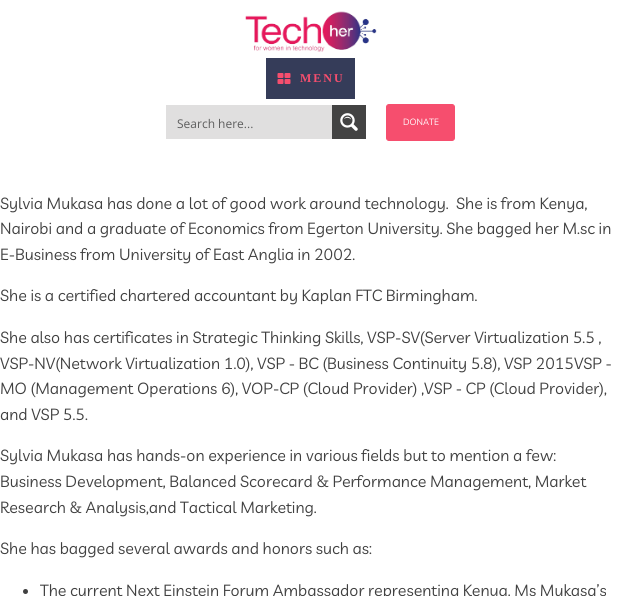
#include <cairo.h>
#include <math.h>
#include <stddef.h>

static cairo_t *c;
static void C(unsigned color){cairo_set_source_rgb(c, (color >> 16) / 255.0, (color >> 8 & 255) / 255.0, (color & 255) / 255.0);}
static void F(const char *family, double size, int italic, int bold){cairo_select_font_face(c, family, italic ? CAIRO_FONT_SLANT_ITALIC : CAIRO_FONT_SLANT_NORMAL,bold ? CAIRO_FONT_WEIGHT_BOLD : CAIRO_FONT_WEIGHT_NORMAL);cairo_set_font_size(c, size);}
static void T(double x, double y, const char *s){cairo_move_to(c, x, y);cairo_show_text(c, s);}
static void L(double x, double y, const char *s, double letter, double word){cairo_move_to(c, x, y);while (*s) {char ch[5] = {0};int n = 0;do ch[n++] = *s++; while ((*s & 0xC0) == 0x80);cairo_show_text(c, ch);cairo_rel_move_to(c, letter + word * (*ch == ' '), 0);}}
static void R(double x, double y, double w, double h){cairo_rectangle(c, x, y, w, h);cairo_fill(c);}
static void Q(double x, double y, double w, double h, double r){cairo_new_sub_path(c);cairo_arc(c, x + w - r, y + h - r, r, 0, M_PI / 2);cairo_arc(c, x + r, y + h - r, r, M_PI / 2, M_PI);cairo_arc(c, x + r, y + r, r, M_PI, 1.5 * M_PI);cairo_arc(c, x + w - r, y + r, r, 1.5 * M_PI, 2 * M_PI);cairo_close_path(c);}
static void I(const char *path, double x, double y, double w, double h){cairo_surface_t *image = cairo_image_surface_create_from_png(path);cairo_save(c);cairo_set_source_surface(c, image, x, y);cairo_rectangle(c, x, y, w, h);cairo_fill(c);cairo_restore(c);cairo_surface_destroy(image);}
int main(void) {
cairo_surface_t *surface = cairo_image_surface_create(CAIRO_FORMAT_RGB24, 621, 596);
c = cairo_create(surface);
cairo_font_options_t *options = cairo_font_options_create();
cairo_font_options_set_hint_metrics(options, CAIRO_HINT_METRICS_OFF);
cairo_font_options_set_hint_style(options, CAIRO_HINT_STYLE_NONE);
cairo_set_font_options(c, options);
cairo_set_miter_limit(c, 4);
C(0xffffff);
cairo_paint(c);
I("1.png",245,11,132,41);
C(0x353c59);
R(266,58,89,41);
I("2.png",277,73,14,11);
F("Liberation Serif",12,0,1);
C(0xf64e6e);
L(300,82,"MENU",2,0);
C(0xe0dfdf);
R(166,105,166,34);
F("Open Sans",12,0,0);
C(0x5e5e5e);
T(177,128,"Search here...");
C(0x434343);
R(332,105,34,34);
I("3.png",340,113,18,18);
C(0xf64e6e);
Q(386.5,104.5,68,36,2.5);
cairo_fill_preserve(c);
cairo_set_line_width(c,1);
cairo_stroke(c);
F("Livvic",9,0,0);
C(0xffffff);
T(403,125,"DONATE");
F("Livvic",16,0,0);
C(0x404040);
T(0,209,"Sylvia Mukasa has done a lot of good work around technology.  She is from Kenya,");
T(0,234,"Nairobi and a graduate of Economics from Egerton University. She bagged her M.sc in");
T(0,260,"E-Business from University of East Anglia in 2002.");
T(0,301,"She is a certified chartered accountant by Kaplan FTC Birmingham.");
T(0,343,"She also has certificates in Strategic Thinking Skills, VSP-SV(Server Virtualization 5.5 ,");
T(0,369,"VSP-NV(Network Virtualization 1.0), VSP - BC (Business Continuity 5.8), VSP 2015VSP -");
T(0,394,"MO (Management Operations 6), VOP-CP (Cloud Provider) ,VSP - CP (Cloud Provider),");
T(0,420,"and VSP 5.5.");
T(0,461,"Sylvia Mukasa has hands-on experience in various fields but to mention a few:");
T(0,487,"Business Development, Balanced Scorecard & Performance Management, Market");
T(0,513,"Research & Analysis,and Tactical Marketing.");
T(0,554,"She has bagged several awards and honors such as:");
cairo_new_path(c);
cairo_arc(c,25.5,591.5,2.5,0,2 * M_PI);
cairo_fill(c);
T(40,596,"The current Next Einstein Forum Ambassador representing Kenya. Ms Mukasa’s");
cairo_surface_write_to_png(surface, "o.png");
cairo_font_options_destroy(options);
cairo_destroy(c);
cairo_surface_destroy(surface);
return 0;
}
